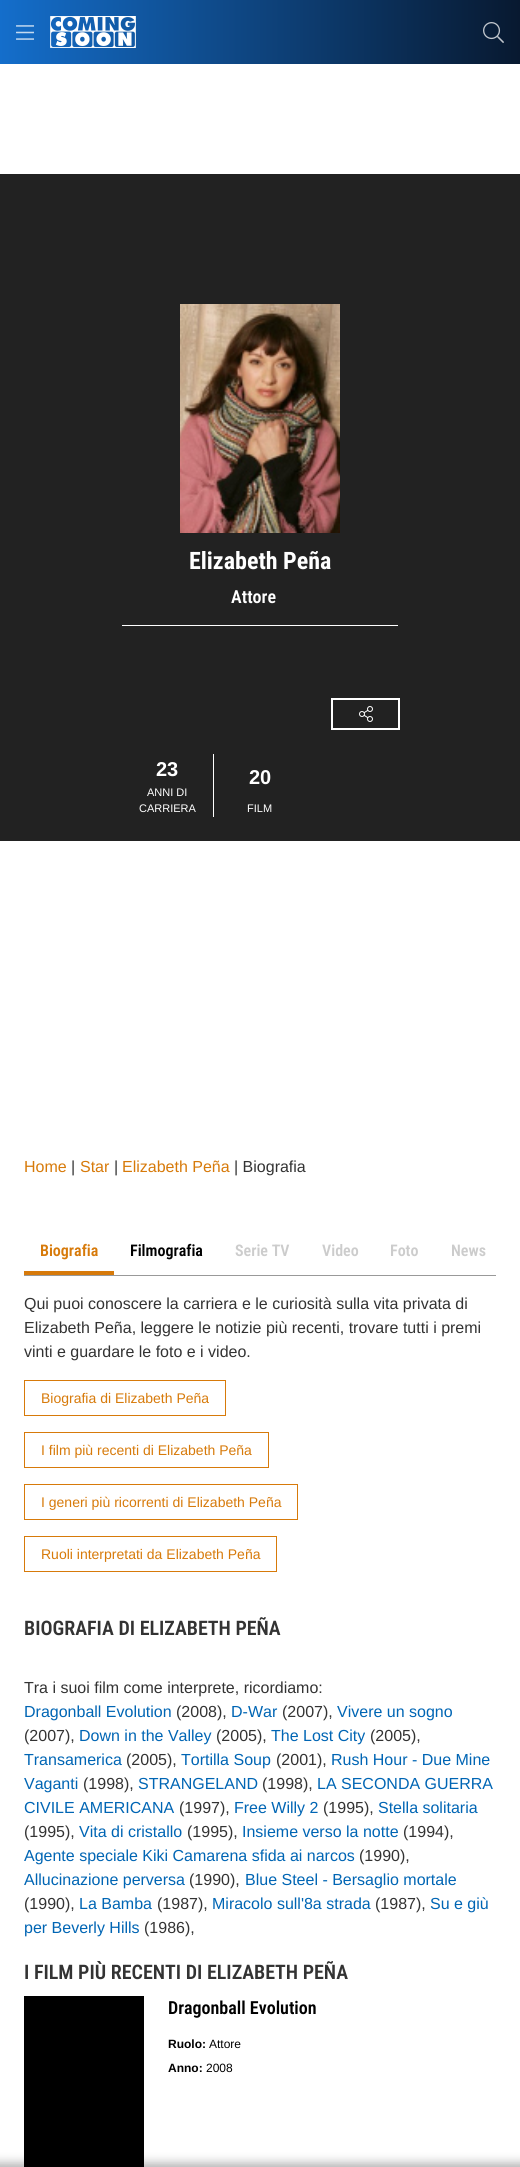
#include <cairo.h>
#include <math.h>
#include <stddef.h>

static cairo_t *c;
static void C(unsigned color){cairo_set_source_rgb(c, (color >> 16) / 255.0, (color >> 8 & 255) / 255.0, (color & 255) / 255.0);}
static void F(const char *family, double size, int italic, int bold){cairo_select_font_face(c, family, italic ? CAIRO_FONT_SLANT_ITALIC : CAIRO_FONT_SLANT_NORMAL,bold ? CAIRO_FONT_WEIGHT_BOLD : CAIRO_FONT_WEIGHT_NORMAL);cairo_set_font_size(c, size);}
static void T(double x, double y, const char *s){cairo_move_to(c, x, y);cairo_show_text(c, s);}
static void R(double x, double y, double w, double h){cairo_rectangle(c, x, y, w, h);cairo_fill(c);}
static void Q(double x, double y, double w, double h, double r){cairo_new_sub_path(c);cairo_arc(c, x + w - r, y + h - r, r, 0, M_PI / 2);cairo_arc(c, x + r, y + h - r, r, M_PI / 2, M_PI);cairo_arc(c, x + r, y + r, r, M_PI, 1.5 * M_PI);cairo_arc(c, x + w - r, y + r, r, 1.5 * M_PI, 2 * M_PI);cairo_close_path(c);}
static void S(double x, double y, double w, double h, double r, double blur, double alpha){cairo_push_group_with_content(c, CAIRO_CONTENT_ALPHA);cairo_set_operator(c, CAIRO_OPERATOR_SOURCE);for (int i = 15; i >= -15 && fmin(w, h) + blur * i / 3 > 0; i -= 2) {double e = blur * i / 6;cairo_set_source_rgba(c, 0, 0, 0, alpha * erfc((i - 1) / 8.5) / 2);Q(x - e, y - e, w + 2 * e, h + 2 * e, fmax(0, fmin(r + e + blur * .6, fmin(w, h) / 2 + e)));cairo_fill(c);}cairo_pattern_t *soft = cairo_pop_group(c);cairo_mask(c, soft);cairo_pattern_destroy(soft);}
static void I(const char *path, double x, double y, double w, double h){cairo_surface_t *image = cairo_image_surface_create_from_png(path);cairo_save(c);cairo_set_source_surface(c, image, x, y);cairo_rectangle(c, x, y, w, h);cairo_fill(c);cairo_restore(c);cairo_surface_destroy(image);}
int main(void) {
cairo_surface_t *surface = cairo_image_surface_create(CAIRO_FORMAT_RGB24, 520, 2167);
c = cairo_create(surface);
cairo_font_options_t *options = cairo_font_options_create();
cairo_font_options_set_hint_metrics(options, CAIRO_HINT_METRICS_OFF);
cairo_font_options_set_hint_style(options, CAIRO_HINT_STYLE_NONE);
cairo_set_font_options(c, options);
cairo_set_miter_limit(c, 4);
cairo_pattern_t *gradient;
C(0xffffff);
cairo_paint(c);
gradient = cairo_pattern_create_linear(0,32,520,32);
cairo_pattern_add_color_stop_rgba(gradient,0,0.078,0.431,0.796,1);
cairo_pattern_add_color_stop_rgba(gradient,1,0.031,0.098,0.188,1);
cairo_set_source(c,gradient);
cairo_pattern_destroy(gradient);
R(0,0,520,64);
I("1.png",16,25,18,15);
I("2.png",50,16,86,32);
I("3.png",483,22,21,21);
C(0x222222);
R(0,174,520,667);
I("4.png",180,304,160,229);
F("Roboto",24,0,1);
C(0xffffff);
T(189,569,"Elizabeth Peña");
F("Roboto SemiBold",18,0,0);
T(231,603,"Attore");
R(122,625,276,1);
cairo_rectangle(c,332,699,67,30);
cairo_stroke(c);
I("5.png",359,706,14,16);
R(213,754,1,63);
F("Liberation Sans",20,0,1);
T(156,776,"23");
F("Liberation Sans",11,0,0);
T(147,796,"ANNI DI");
T(139,812,"CARRIERA");
F("Liberation Sans",20,0,1);
T(249,784,"20");
F("Liberation Sans",11,0,0);
T(247,812,"FILM");
F("Liberation Sans",16,0,0);
C(0xd77a0a);
T(24,1172,"Home");
C(0x333333);
T(71,1172,"|");
C(0xd77a0a);
T(80,1172,"Star");
C(0x333333);
T(114,1172,"|");
C(0xd77a0a);
T(122,1172,"Elizabeth Peña");
C(0x333333);
T(234,1172,"| Biografia");
F("Roboto SemiBold",16,0,0);
C(0xd77a0a);
T(40,1256,"Biografia");
R(24,1271,90,4);
C(0x000000);
T(130,1256,"Filmografia");
C(0xcccccc);
T(235,1256,"Serie TV");
T(322,1256,"Video");
T(390,1256,"Foto");
T(451,1256,"News");
C(0x999999);
R(24,1275,472,1);
F("Liberation Sans",16,0,0);
C(0x333333);
T(24,1309,"Qui puoi conoscere la carriera e le curiosità sulla vita privata di");
T(24,1333,"Elizabeth Peña, leggere le notizie più recenti, trovare tutti i premi");
T(24,1357,"vinti e guardare le foto e i video.");
cairo_rectangle(c,24.5,1380.5,201,35);
C(0xd77a0a);
cairo_set_line_width(c,1);
cairo_stroke(c);
F("Liberation Sans",14,0,0);
T(41,1403,"Biografia di Elizabeth Peña");
cairo_rectangle(c,24.5,1432.5,244,35);
cairo_stroke(c);
T(41,1455,"I film più recenti di Elizabeth Peña");
cairo_rectangle(c,24.5,1484.5,273,35);
cairo_stroke(c);
T(41,1507,"I generi più ricorrenti di Elizabeth Peña");
cairo_rectangle(c,24.5,1536.5,252,35);
cairo_stroke(c);
T(41,1559,"Ruoli interpretati da Elizabeth Peña");
F("Roboto SemiBold",20,0,0);
C(0x333333);
T(24,1635,"BIOGRAFIA DI ELIZABETH PEÑA");
F("Liberation Sans",16,0,0);
T(24,1693,"Tra i suoi film come interprete, ricordiamo:");
C(0x0065b4);
T(24,1717,"Dragonball Evolution");
C(0x333333);
T(176,1717,"(2008),");
C(0x0065b4);
T(231,1717,"D-War");
C(0x333333);
T(282,1717,"(2007),");
C(0x0065b4);
T(337,1717,"Vivere un sogno");
C(0x333333);
T(24,1741,"(2007),");
C(0x0065b4);
T(79,1741,"Down in the Valley");
C(0x333333);
T(216,1741,"(2005),");
C(0x0065b4);
T(271,1741,"The Lost City");
C(0x333333);
T(370,1741,"(2005),");
C(0x0065b4);
T(24,1765,"Transamerica");
C(0x333333);
T(126,1765,"(2005),");
C(0x0065b4);
T(181,1765,"Tortilla Soup");
C(0x333333);
T(276,1765,"(2001),");
C(0x0065b4);
T(331,1765,"Rush Hour - Due Mine");
T(24,1789,"Vaganti");
C(0x333333);
T(83,1789,"(1998),");
C(0x0065b4);
T(138,1789,"STRANGELAND");
C(0x333333);
T(262,1789,"(1998),");
C(0x0065b4);
T(317,1789,"LA SECONDA GUERRA");
T(24,1813,"CIVILE AMERICANA");
C(0x333333);
T(179,1813,"(1997),");
C(0x0065b4);
T(234,1813,"Free Willy 2");
C(0x333333);
T(323,1813,"(1995),");
C(0x0065b4);
T(378,1813,"Stella solitaria");
C(0x333333);
T(24,1837,"(1995),");
C(0x0065b4);
T(79,1837,"Vita di cristallo");
C(0x333333);
T(187,1837,"(1995),");
C(0x0065b4);
T(242,1837,"Insieme verso la notte");
C(0x333333);
T(403,1837,"(1994),");
C(0x0065b4);
T(24,1861,"Agente speciale Kiki Camarena sfida ai narcos");
C(0x333333);
T(359,1861,"(1990),");
C(0x0065b4);
T(24,1885,"Allucinazione perversa");
C(0x333333);
T(189,1885,"(1990),");
C(0x0065b4);
T(245,1885,"Blue Steel - Bersaglio mortale");
C(0x333333);
T(24,1909,"(1990),");
C(0x0065b4);
T(79,1909,"La Bamba");
C(0x333333);
T(157,1909,"(1987),");
C(0x0065b4);
T(212,1909,"Miracolo sull'8a strada");
C(0x333333);
T(375,1909,"(1987),");
C(0x0065b4);
T(430,1909,"Su e giù");
T(24,1933,"per Beverly Hills");
C(0x333333);
T(144,1933,"(1986),");
F("Roboto SemiBold",20,0,0);
T(24,1979,"I FILM PIÙ RECENTI DI ELIZABETH PEÑA");
C(0x000000);
R(24,1996,120,171);
F("Roboto SemiBold",18,0,0);
T(168,2014,"Dragonball Evolution");
F("Liberation Sans",12,0,1);
T(168,2048,"Ruolo:");
F("Liberation Sans",12,0,0);
T(209,2048,"Attore");
F("Liberation Sans",12,0,1);
T(168,2072,"Anno:");
F("Liberation Sans",12,0,0);
T(206,2072,"2008");
C(0x000000);
S(-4,2163,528,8,0,5,.3);
cairo_surface_write_to_png(surface, "o.png");
cairo_font_options_destroy(options);
cairo_destroy(c);
cairo_surface_destroy(surface);
return 0;
}
